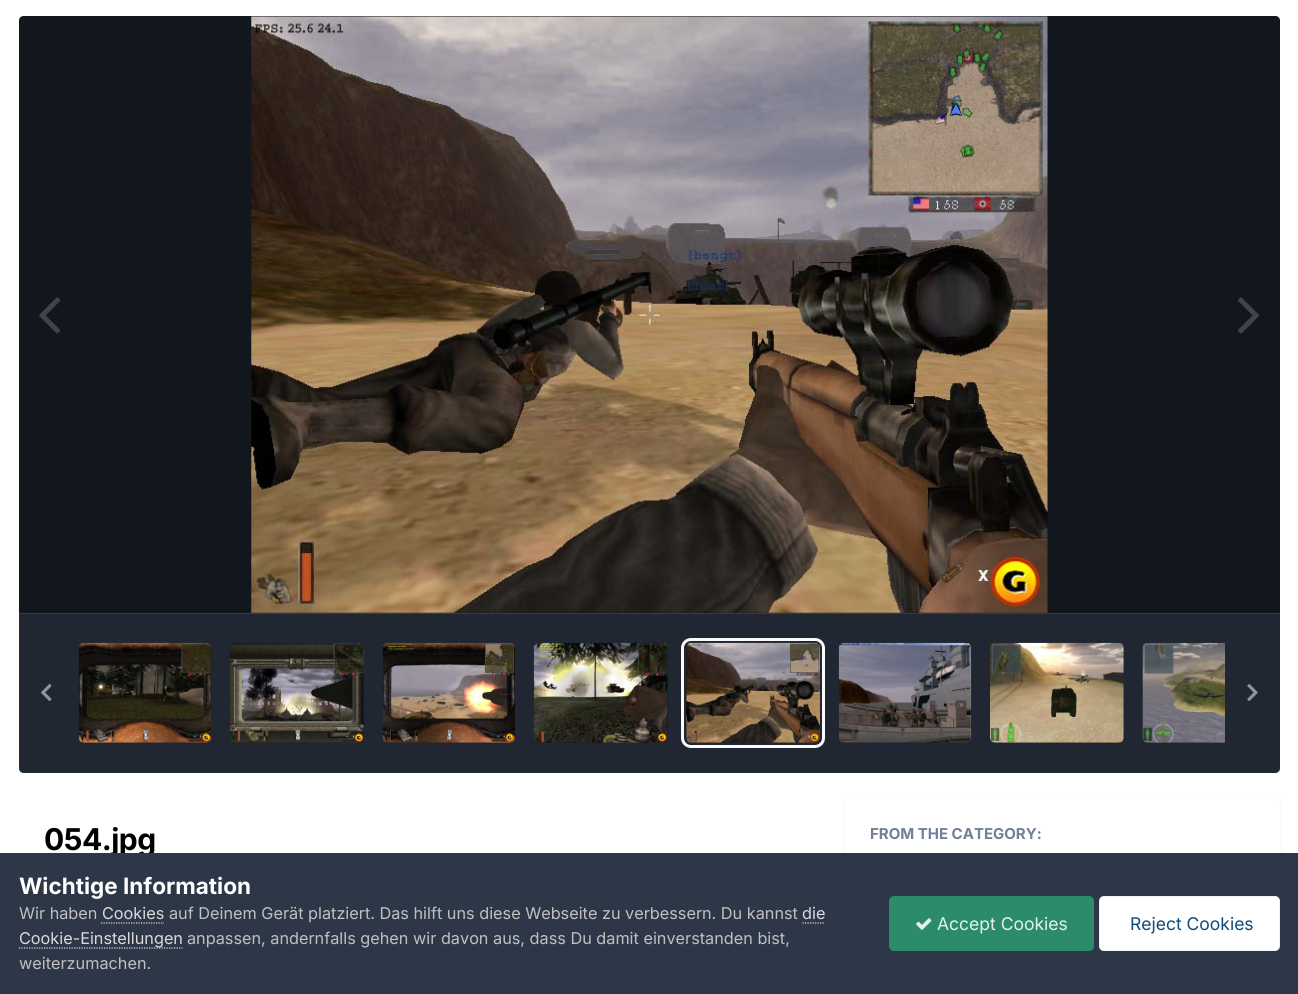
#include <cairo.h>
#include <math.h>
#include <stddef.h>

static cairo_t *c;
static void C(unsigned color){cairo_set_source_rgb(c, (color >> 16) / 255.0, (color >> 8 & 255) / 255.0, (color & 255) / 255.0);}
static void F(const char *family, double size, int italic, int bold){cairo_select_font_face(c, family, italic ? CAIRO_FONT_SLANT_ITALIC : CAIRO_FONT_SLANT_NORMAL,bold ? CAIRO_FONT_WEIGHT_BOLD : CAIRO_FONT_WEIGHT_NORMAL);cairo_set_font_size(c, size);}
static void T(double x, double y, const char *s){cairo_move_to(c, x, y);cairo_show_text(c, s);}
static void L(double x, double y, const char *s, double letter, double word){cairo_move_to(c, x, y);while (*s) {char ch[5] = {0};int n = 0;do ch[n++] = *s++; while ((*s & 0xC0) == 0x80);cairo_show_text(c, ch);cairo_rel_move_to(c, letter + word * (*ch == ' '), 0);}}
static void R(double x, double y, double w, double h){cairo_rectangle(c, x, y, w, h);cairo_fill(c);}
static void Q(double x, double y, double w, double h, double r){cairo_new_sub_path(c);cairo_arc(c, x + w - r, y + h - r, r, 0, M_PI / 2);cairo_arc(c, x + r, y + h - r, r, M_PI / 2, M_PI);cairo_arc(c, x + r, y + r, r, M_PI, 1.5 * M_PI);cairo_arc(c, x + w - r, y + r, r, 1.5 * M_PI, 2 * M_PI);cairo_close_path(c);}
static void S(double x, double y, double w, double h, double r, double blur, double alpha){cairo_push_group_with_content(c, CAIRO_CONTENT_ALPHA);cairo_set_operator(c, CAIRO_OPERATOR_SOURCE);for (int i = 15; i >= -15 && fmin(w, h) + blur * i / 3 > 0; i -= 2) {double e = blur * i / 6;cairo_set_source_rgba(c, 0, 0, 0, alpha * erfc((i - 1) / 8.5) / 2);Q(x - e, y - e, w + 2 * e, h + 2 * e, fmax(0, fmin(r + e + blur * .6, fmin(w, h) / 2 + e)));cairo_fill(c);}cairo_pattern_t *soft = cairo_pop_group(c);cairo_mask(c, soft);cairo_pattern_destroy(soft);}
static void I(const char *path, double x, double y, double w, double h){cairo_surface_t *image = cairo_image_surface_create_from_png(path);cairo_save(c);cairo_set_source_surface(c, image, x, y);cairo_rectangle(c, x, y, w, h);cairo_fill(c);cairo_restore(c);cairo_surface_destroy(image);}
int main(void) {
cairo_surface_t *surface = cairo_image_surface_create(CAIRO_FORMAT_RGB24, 1298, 994);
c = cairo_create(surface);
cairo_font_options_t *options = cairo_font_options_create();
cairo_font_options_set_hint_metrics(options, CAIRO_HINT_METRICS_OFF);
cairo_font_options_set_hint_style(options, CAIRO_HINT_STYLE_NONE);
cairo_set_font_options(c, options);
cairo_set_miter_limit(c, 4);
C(0xffffff);
cairo_paint(c);
C(0x2d3748);
cairo_new_path(c);
cairo_move_to(c,24,16);
cairo_line_to(c,1275,16);
cairo_curve_to(c,1278,16,1280,18,1280,21);
cairo_line_to(c,1280,613);
cairo_line_to(c,19,613);
cairo_line_to(c,19,21);
cairo_curve_to(c,19,18,21,16,24,16);
cairo_close_path(c);
cairo_fill(c);
cairo_set_source_rgba(c,0,0,0,0.6);
cairo_new_path(c);
cairo_move_to(c,24,16);
cairo_line_to(c,1275,16);
cairo_curve_to(c,1278,16,1280,18,1280,21);
cairo_line_to(c,1280,613);
cairo_line_to(c,19,613);
cairo_line_to(c,19,21);
cairo_curve_to(c,19,18,21,16,24,16);
cairo_close_path(c);
cairo_fill(c);
I("1.png",251,16,797,597);
I("2.png",39,297,22,37);
I("3.png",1238,297,21,37);
C(0x2d3748);
cairo_new_path(c);
cairo_move_to(c,19,613);
cairo_line_to(c,1280,613);
cairo_line_to(c,1280,768);
cairo_curve_to(c,1280,771,1278,773,1275,773);
cairo_line_to(c,24,773);
cairo_curve_to(c,21,773,19,771,19,768);
cairo_close_path(c);
cairo_fill(c);
cairo_set_source_rgba(c,0,0,0,0.3);
cairo_new_path(c);
cairo_move_to(c,19,613);
cairo_line_to(c,1280,613);
cairo_line_to(c,1280,768);
cairo_curve_to(c,1280,771,1278,773,1275,773);
cairo_line_to(c,24,773);
cairo_curve_to(c,21,773,19,771,19,768);
cairo_close_path(c);
cairo_fill(c);
C(0x363c47);
R(19,613,1261,1);
C(0x141414);
Q(79,643,132,100,5);
cairo_fill(c);
cairo_set_source_rgba(c,0.176,0.216,0.282,0.3);
Q(79,643,132,100,5);
cairo_fill(c);
I("4.png",78,642,134,101);
C(0x141414);
Q(230,643,134,100,5);
cairo_fill(c);
cairo_set_source_rgba(c,0.176,0.216,0.282,0.3);
Q(230,643,134,100,5);
cairo_fill(c);
I("5.png",230,643,134,100);
C(0x141414);
Q(383,643,132,100,5);
cairo_fill(c);
cairo_set_source_rgba(c,0.176,0.216,0.282,0.3);
Q(383,643,132,100,5);
cairo_fill(c);
I("6.png",382,642,133,101);
C(0x141414);
Q(534,643,134,100,5);
cairo_fill(c);
cairo_set_source_rgba(c,0.176,0.216,0.282,0.3);
Q(534,643,134,100,5);
cairo_fill(c);
I("7.png",533,642,135,101);
C(0x141414);
Q(686,643,134,100,5);
cairo_fill(c);
cairo_set_source_rgba(c,0.176,0.216,0.282,0.3);
Q(686,643,134,100,5);
cairo_fill(c);
Q(682.5,639.5,141,107,8.5);
C(0xfafafa);
cairo_set_line_width(c,3);
cairo_stroke(c);
I("8.png",686,642,134,101);
C(0x141414);
Q(839,643,132,100,5);
cairo_fill(c);
cairo_set_source_rgba(c,0.176,0.216,0.282,0.3);
Q(839,643,132,100,5);
cairo_fill(c);
I("9.png",838,642,134,101);
C(0x141414);
Q(990,643,134,100,5);
cairo_fill(c);
cairo_set_source_rgba(c,0.176,0.216,0.282,0.3);
Q(990,643,134,100,5);
cairo_fill(c);
I("10.png",990,642,134,101);
C(0x141414);
cairo_new_path(c);
cairo_move_to(c,1148,643);
cairo_line_to(c,1225,643);
cairo_line_to(c,1225,743);
cairo_line_to(c,1148,743);
cairo_curve_to(c,1145,743,1143,741,1143,738);
cairo_line_to(c,1143,648);
cairo_curve_to(c,1143,645,1145,643,1148,643);
cairo_close_path(c);
cairo_fill(c);
cairo_set_source_rgba(c,0.176,0.216,0.282,0.3);
cairo_new_path(c);
cairo_move_to(c,1148,643);
cairo_line_to(c,1225,643);
cairo_line_to(c,1225,743);
cairo_line_to(c,1148,743);
cairo_curve_to(c,1145,743,1143,741,1143,738);
cairo_line_to(c,1143,648);
cairo_curve_to(c,1143,645,1145,643,1148,643);
cairo_close_path(c);
cairo_fill(c);
I("11.png",1142,642,83,101);
I("12.png",41,684,11,17);
I("13.png",1247,684,11,17);
F("Inter",30,0,1);
C(0x000000);
L(44,850,"054.jpg",-.5,0);
C(0x2d3748);
S(846,801,433,164,4,2.5,.1);
C(0xffffff);
Q(845,798,435,166,5);
cairo_fill(c);
F("Inter",15,0,1);
C(0x718096);
T(870,839,"FROM THE CATEGORY:");
C(0x2d3748);
R(0,853,1298,141);
F("Inter",22.5,0,1);
C(0xffffff);
T(19,894,"Wichtige Information");
F("Inter",16.25,0,0);
C(0xc0c0c0);
T(19,919,"Wir haben");
C(0xdadada);
T(102,919,"Cookies");
cairo_new_path(c);
cairo_move_to(c,101,923);
cairo_line_to(c,164,923);
cairo_set_line_width(c,1.2);
cairo_set_dash(c,(double[]){1.25,1.25},2,0);
cairo_stroke(c);
C(0xc0c0c0);
T(169,919,"auf Deinem Gerät platziert. Das hilft uns diese Webseite zu verbessern. Du kannst");
C(0xdadada);
T(802,919,"die");
cairo_new_path(c);
cairo_move_to(c,802.5,923);
cairo_line_to(c,825,923);
cairo_stroke(c);
cairo_new_path(c);
cairo_move_to(c,19,948);
cairo_line_to(c,182.5,948);
cairo_stroke(c);
T(19,944,"Cookie-Einstellungen");
C(0xc0c0c0);
T(187,944,"anpassen, andernfalls gehen wir davon aus, dass Du damit einverstanden bist,");
T(19,969,"weiterzumachen.");
C(0x2c8c69);
Q(889,896,205,55,5);
cairo_fill(c);
I("14.png",916,918,16,12);
F("Inter",17.5,0,0);
C(0xe3f3ec);
T(937,930,"Accept Cookies");
C(0xffffff);
Q(1099,896,181,55,5);
cairo_fill(c);
Q(1099.5,896.5,180,54,4.5);
cairo_set_source_rgba(c,0.055,0.298,0.475,0.07);
cairo_set_line_width(c,1);
cairo_set_dash(c,NULL,0,0);
cairo_stroke(c);
C(0x0e4c79);
T(1130,930,"Reject Cookies");
cairo_surface_write_to_png(surface, "o.png");
cairo_font_options_destroy(options);
cairo_destroy(c);
cairo_surface_destroy(surface);
return 0;
}
